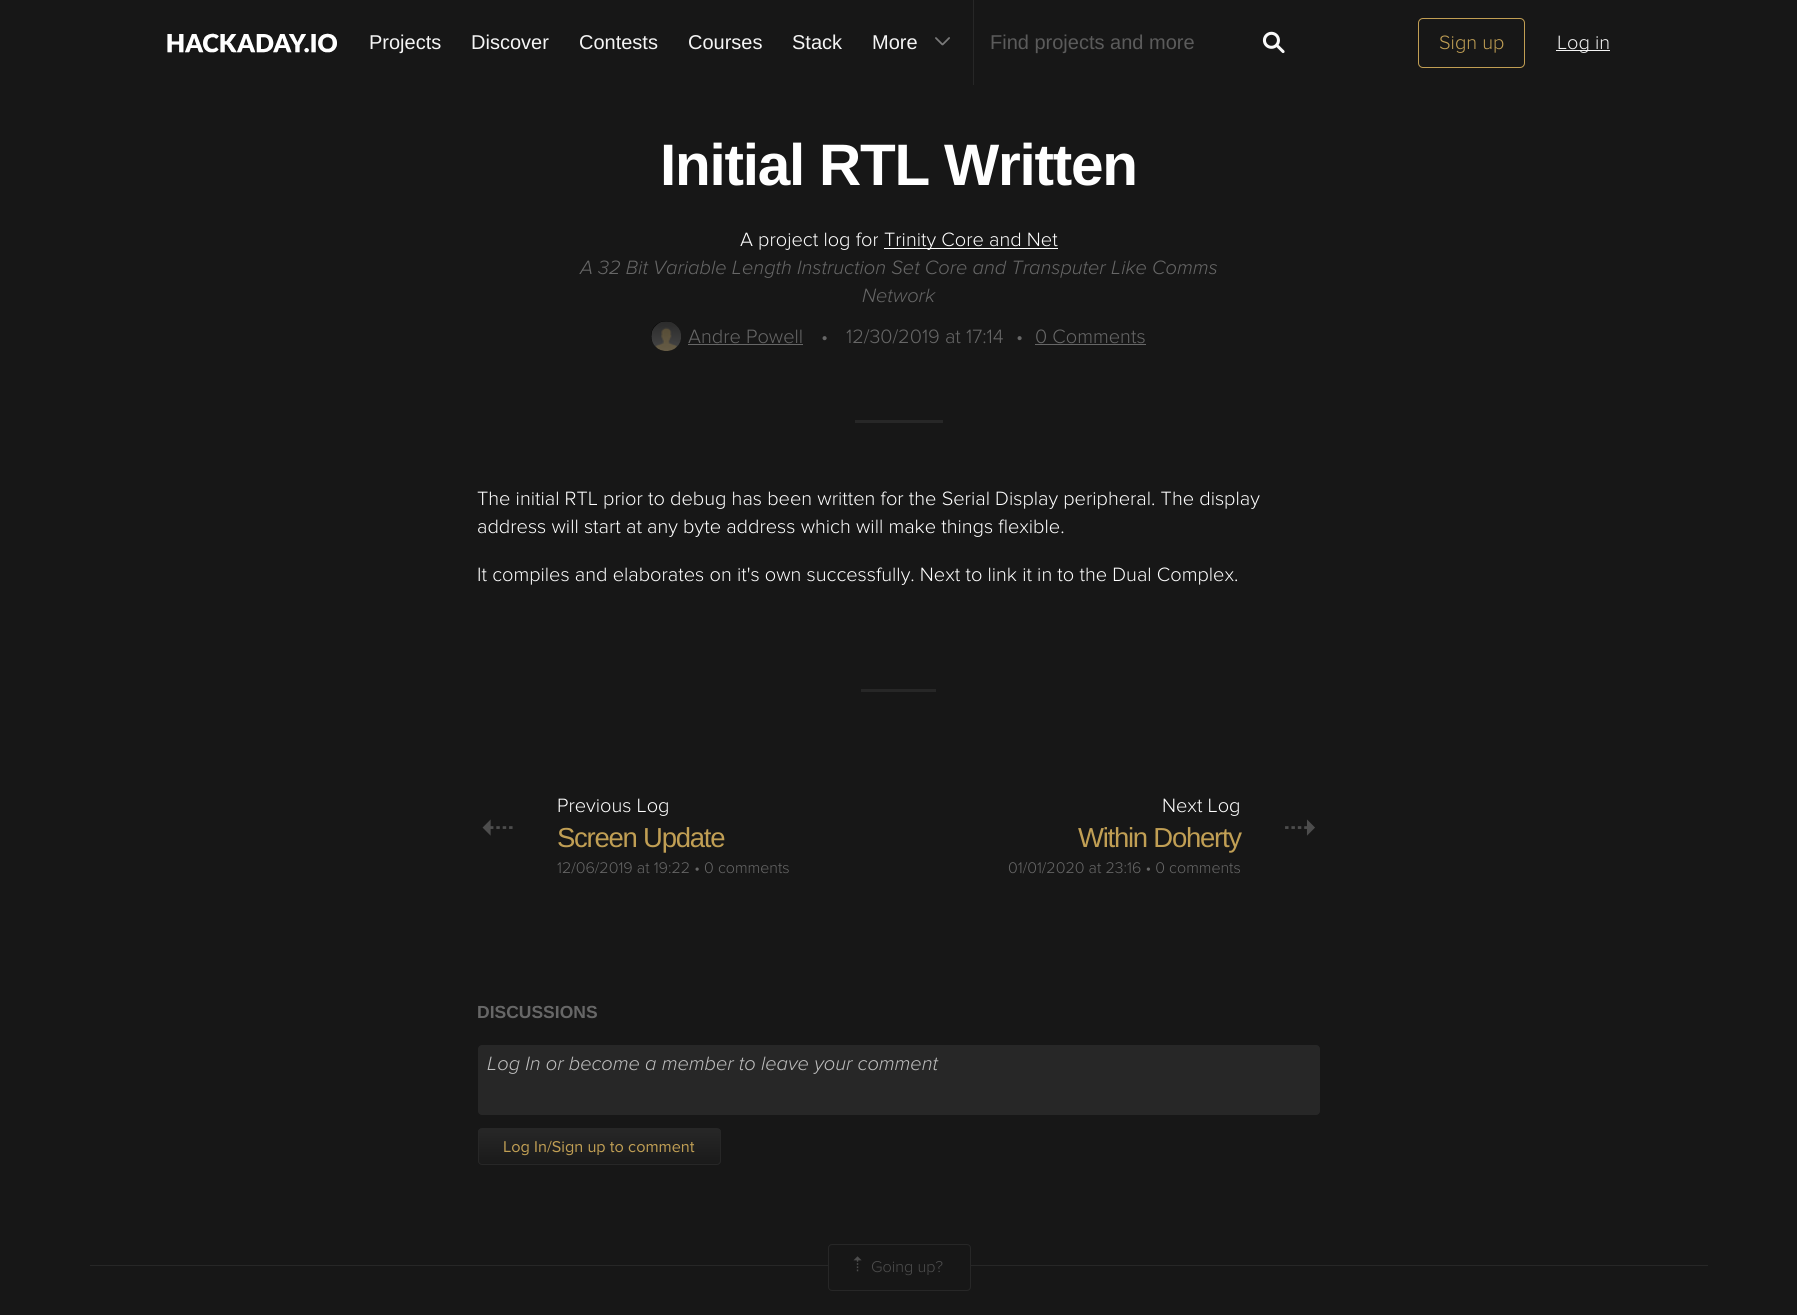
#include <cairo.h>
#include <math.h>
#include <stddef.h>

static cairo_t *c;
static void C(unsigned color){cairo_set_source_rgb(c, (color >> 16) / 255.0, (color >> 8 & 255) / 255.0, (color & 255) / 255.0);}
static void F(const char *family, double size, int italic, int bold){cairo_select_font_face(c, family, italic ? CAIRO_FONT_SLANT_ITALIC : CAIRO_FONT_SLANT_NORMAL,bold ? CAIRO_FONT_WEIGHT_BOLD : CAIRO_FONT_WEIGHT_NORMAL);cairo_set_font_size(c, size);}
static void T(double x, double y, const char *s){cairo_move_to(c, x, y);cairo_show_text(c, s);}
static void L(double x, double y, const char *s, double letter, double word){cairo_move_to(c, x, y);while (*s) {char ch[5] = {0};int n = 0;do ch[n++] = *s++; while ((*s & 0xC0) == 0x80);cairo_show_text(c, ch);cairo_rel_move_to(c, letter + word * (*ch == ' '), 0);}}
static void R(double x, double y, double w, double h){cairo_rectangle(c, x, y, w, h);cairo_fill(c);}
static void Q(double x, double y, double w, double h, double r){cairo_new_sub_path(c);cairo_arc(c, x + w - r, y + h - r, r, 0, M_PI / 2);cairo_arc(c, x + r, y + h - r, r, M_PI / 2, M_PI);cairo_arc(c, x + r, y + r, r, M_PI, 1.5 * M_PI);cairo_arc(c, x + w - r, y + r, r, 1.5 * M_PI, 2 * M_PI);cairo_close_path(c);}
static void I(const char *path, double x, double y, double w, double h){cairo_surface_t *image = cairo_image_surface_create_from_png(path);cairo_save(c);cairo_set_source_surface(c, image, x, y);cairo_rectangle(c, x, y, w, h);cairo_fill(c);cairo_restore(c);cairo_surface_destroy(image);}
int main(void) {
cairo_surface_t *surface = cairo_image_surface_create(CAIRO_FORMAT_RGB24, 1797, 1315);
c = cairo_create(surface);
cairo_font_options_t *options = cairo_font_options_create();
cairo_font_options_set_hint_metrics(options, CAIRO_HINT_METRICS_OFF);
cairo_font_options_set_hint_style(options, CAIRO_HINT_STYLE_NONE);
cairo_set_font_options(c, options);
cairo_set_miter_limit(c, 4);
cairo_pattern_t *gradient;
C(0x171717);
cairo_paint(c);
I("1.png",167,33,170,20);
F("Liberation Sans",20,0,0);
C(0xf5f5f5);
T(369,49,"Projects");
T(471,49,"Discover");
T(579,49,"Contests");
T(688,49,"Courses");
T(792,49,"Stack");
T(872,49,"More");
I("2.png",935,37,15,9);
C(0x272727);
R(973,0,1,85);
C(0x5b5b5b);
T(990,49,"Find projects and more");
I("3.png",1262,31,23,23);
Q(1418.5,18.5,106,49,4.5);
C(0xc19e53);
cairo_set_line_width(c,1);
cairo_stroke(c);
F("Proxima Nova Light",20,0,0);
C(0xc19f54);
T(1439,49,"Sign up");
C(0xf5f5f5);
R(1556,50,54,1);
T(1557,49,"Log in");
F("Liberation Sans",58.5,0,1);
C(0xffffff);
L(660,185,"Initial RTL Written",-1.25,0);
F("Proxima Nova Light",20,0,0);
T(740,246,"A project log for");
R(884,248,174,1);
T(884,246,"Trinity Core and Net");
F("Proxima Nova Light",20,1,0);
C(0x676767);
T(580,274,"A 32 Bit Variable Length Instruction Set Core and Transputer Like Comms");
T(862,302,"Network");
C(0x000000);
cairo_new_path(c);
cairo_arc(c,666,336,15,0,2 * M_PI);
cairo_fill(c);
I("4.png",651,321,30,30);
F("Proxima Nova Light",20,0,0);
C(0x676767);
T(688,343,"Andre Powell");
R(688,344,115,1);
T(821,343,"•");
T(846,343,"12/30/2019 at 17:14");
T(1016,343,"•");
T(1035,343,"0 Comments");
R(1035,344,111,1);
C(0x272727);
R(855,420,88,3);
C(0xffffff);
T(477,505,"The initial RTL prior to debug has been written for the Serial Display peripheral. The display");
T(477,533,"address will start at any byte address which will make things flexible.");
T(477,581,"It compiles and elaborates on it's own successfully. Next to link it in to the Dual Complex.");
C(0x272727);
R(861,689,75,3);
I("5.png",482,819,31,17);
C(0xffffff);
T(557,812,"Previous Log");
F("Liberation Sans",27.5,0,0);
C(0xc19f54);
L(557,847,"Screen Update",-1.25,0);
F("Proxima Nova Light",16,0,0);
C(0x676767);
T(557,873,"12/06/2019 at 19:22 • 0 comments");
F("Proxima Nova Light",20,0,0);
C(0xffffff);
T(1162,812,"Next Log");
F("Liberation Sans",27.5,0,0);
C(0xc19f54);
L(1078,847,"Within Doherty",-1.25,0);
F("Proxima Nova Light",16,0,0);
C(0x676767);
T(1008,873,"01/01/2020 at 23:16 • 0 comments");
I("6.png",1285,819,30,17);
F("Liberation Sans",17.5,0,1);
T(477,1018,"DISCUSSIONS");
C(0x272727);
Q(478,1045,842,70,4);
cairo_fill(c);
F("Proxima Nova Light",20,1,0);
C(0xbfbfbf);
T(487,1070,"Log In or become a member to leave your comment");
cairo_save(c);
Q(478,1128,243,37,4);
cairo_clip(c);
gradient = cairo_pattern_create_linear(599,1129,599,1164);
cairo_pattern_add_color_stop_rgba(gradient,0,0.153,0.153,0.153,1);
cairo_pattern_add_color_stop_rgba(gradient,1,0.102,0.102,0.102,1);
cairo_set_source(c,gradient);
cairo_pattern_destroy(gradient);
R(478,1129,243,35);
cairo_restore(c);
Q(478.5,1128.5,242,36,3.5);
C(0x272727);
cairo_stroke(c);
F("Proxima Nova",16.25,0,0);
C(0xc19f54);
T(503,1152,"Log In/Sign up to comment");
C(0x272727);
R(90,1265,1618,1);
C(0x171717);
Q(828.5,1244.5,142,46,3.5);
cairo_fill_preserve(c);
C(0x272727);
cairo_stroke(c);
I("7.png",853,1256,9,16);
F("Proxima Nova Light",16.25,0,0);
C(0x4d4d4d);
T(871,1272,"Going up?");
cairo_surface_write_to_png(surface, "o.png");
cairo_font_options_destroy(options);
cairo_destroy(c);
cairo_surface_destroy(surface);
return 0;
}
